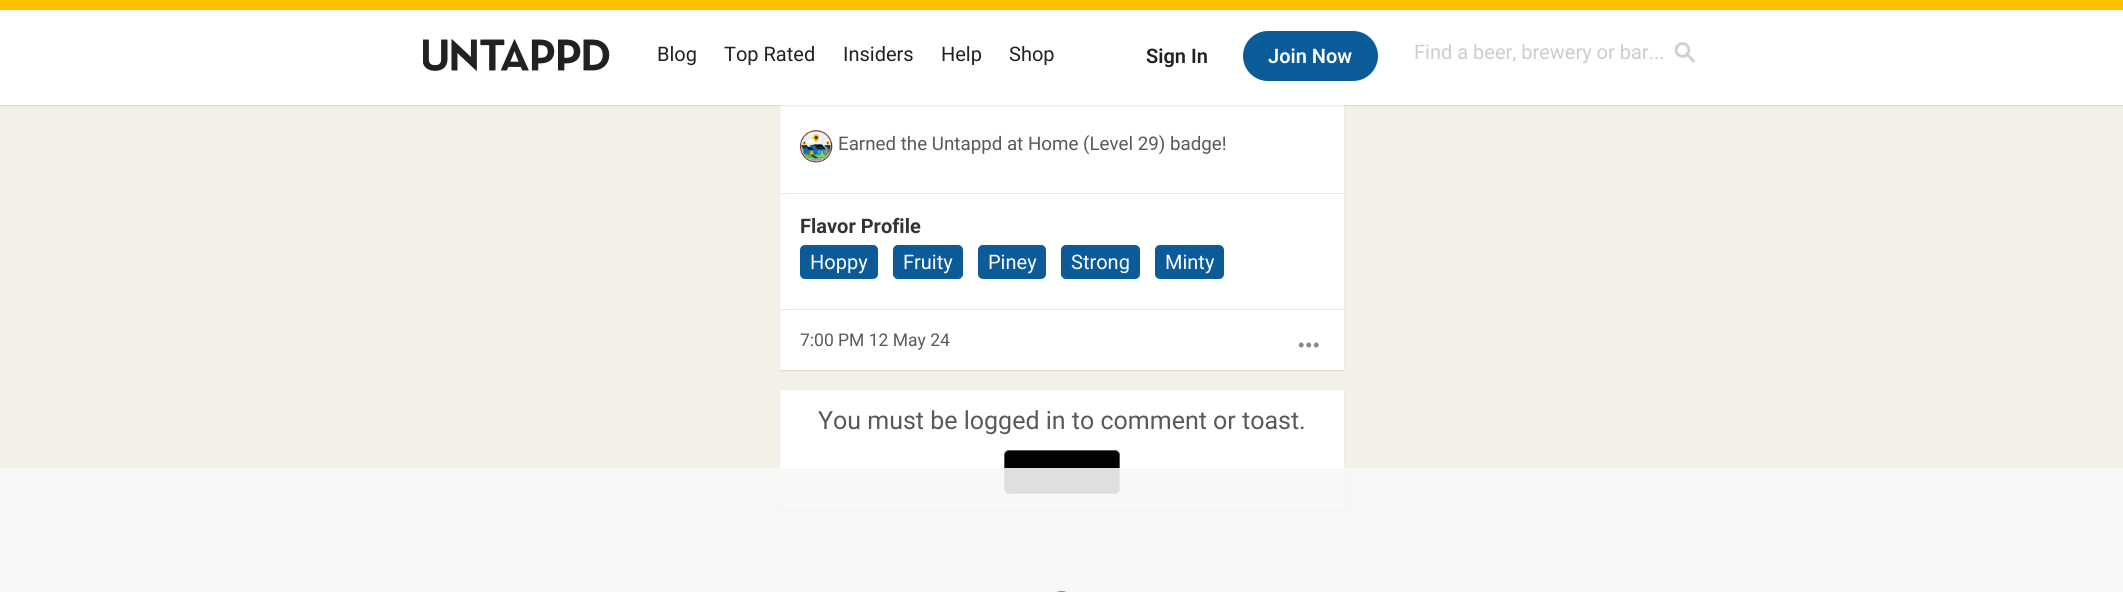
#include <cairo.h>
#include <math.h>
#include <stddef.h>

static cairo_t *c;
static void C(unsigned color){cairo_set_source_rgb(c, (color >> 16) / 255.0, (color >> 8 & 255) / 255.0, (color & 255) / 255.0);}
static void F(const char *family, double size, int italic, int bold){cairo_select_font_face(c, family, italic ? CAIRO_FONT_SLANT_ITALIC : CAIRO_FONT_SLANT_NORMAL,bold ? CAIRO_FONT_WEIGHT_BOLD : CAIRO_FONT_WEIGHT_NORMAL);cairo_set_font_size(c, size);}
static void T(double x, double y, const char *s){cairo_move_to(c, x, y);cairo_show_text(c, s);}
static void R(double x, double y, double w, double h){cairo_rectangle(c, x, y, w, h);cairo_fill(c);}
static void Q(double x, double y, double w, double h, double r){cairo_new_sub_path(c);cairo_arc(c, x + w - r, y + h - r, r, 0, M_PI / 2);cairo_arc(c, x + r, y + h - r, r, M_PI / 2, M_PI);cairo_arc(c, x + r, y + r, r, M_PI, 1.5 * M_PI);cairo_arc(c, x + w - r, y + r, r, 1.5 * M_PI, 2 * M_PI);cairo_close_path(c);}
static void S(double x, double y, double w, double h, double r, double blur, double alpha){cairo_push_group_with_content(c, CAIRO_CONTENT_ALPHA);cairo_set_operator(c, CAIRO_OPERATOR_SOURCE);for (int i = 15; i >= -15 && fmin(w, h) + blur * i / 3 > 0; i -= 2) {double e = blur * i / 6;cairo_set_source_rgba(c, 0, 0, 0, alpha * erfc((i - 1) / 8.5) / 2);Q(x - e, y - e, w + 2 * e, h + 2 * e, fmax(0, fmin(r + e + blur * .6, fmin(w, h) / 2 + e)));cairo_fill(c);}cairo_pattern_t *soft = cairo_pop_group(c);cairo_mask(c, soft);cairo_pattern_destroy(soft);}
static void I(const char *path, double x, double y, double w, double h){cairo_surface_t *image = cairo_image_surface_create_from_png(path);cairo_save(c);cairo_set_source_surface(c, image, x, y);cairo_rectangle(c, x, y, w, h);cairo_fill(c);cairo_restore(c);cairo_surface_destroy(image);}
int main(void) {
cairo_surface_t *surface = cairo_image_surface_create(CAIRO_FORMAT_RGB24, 2123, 592);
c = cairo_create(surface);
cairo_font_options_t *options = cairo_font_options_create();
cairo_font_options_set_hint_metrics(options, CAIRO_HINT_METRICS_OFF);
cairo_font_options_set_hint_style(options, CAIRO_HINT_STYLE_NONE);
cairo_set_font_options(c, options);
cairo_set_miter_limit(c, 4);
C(0xf3f0e8);
cairo_paint(c);
C(0x000000);
S(780,-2,564,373,0,.5,.1);
C(0xffffff);
R(780,105,564,265);
C(0x000000);
S(0,1,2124,105,0,.5,.1);
C(0xffffff);
R(0,10,2123,95);
C(0xffc000);
R(0,0,2123,10);
I("1.png",423,39,187,32);
F("Roboto",20,0,0);
C(0x212121);
T(657,61,"Blog");
T(724,61,"Top Rated");
T(843,61,"Insiders");
T(941,61,"Help");
T(1009,61,"Shop");
I("3.png",1674,42,22,21);
I("2.png",1675,42,20,21);
C(0xcccccc);
T(1414,59,"Find a beer, brewery or bar...");
F("Roboto SemiBold",20,0,0);
C(0x212121);
T(1146,63,"Sign In");
C(0x0b5b99);
Q(1243,31,135,50,25);
cairo_fill(c);
C(0xffffff);
T(1268,63,"Join Now");
C(0xe6e6e6);
R(780,193,564,1);
I("4.png",800,130,33,33);
F("Roboto",18.75,0,0);
C(0x595959);
T(838,150,"Earned the Untappd at Home (Level 29) badge!");
C(0xe6e6e6);
R(780,309,564,1);
F("Roboto",20,0,1);
C(0x333333);
T(800,233,"Flavor Profile");
C(0x0b5b99);
Q(800,245,78,34,5);
cairo_fill(c);
F("Roboto",20,0,0);
C(0xffffff);
T(810,269,"Hoppy");
C(0x0b5b99);
Q(893,245,70,34,5);
cairo_fill(c);
C(0xffffff);
T(903,269,"Fruity");
C(0x0b5b99);
Q(978,245,68,34,5);
cairo_fill(c);
C(0xffffff);
T(988,269,"Piney");
C(0x0b5b99);
Q(1061,245,79,34,5);
cairo_fill(c);
C(0xffffff);
T(1071,269,"Strong");
C(0x0b5b99);
Q(1155,245,69,34,5);
cairo_fill(c);
C(0xffffff);
T(1165,269,"Minty");
F("Roboto",17.5,0,0);
C(0x595959);
T(800,346,"7:00 PM 12 May 24");
I("5.png",1298,342,21,6);
C(0x000000);
S(780,391,564,119,0,.5,.1);
C(0xffffff);
R(780,390,564,119);
F("Roboto",25,0,0);
C(0x595959);
T(818,429,"You must be logged in to comment or toast.");
C(0x020202);
Q(1004.5,450.5,115,43,4.5);
cairo_fill_preserve(c);
C(0x545863);
cairo_set_line_width(c,1);
cairo_stroke(c);
cairo_set_source_rgba(c,0.969,0.969,0.969,0.9);
R(0,468,2123,124);
Q(1048.5,591.5,26,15,13);
C(0x888888);
cairo_stroke(c);
cairo_surface_write_to_png(surface, "o.png");
cairo_font_options_destroy(options);
cairo_destroy(c);
cairo_surface_destroy(surface);
return 0;
}
